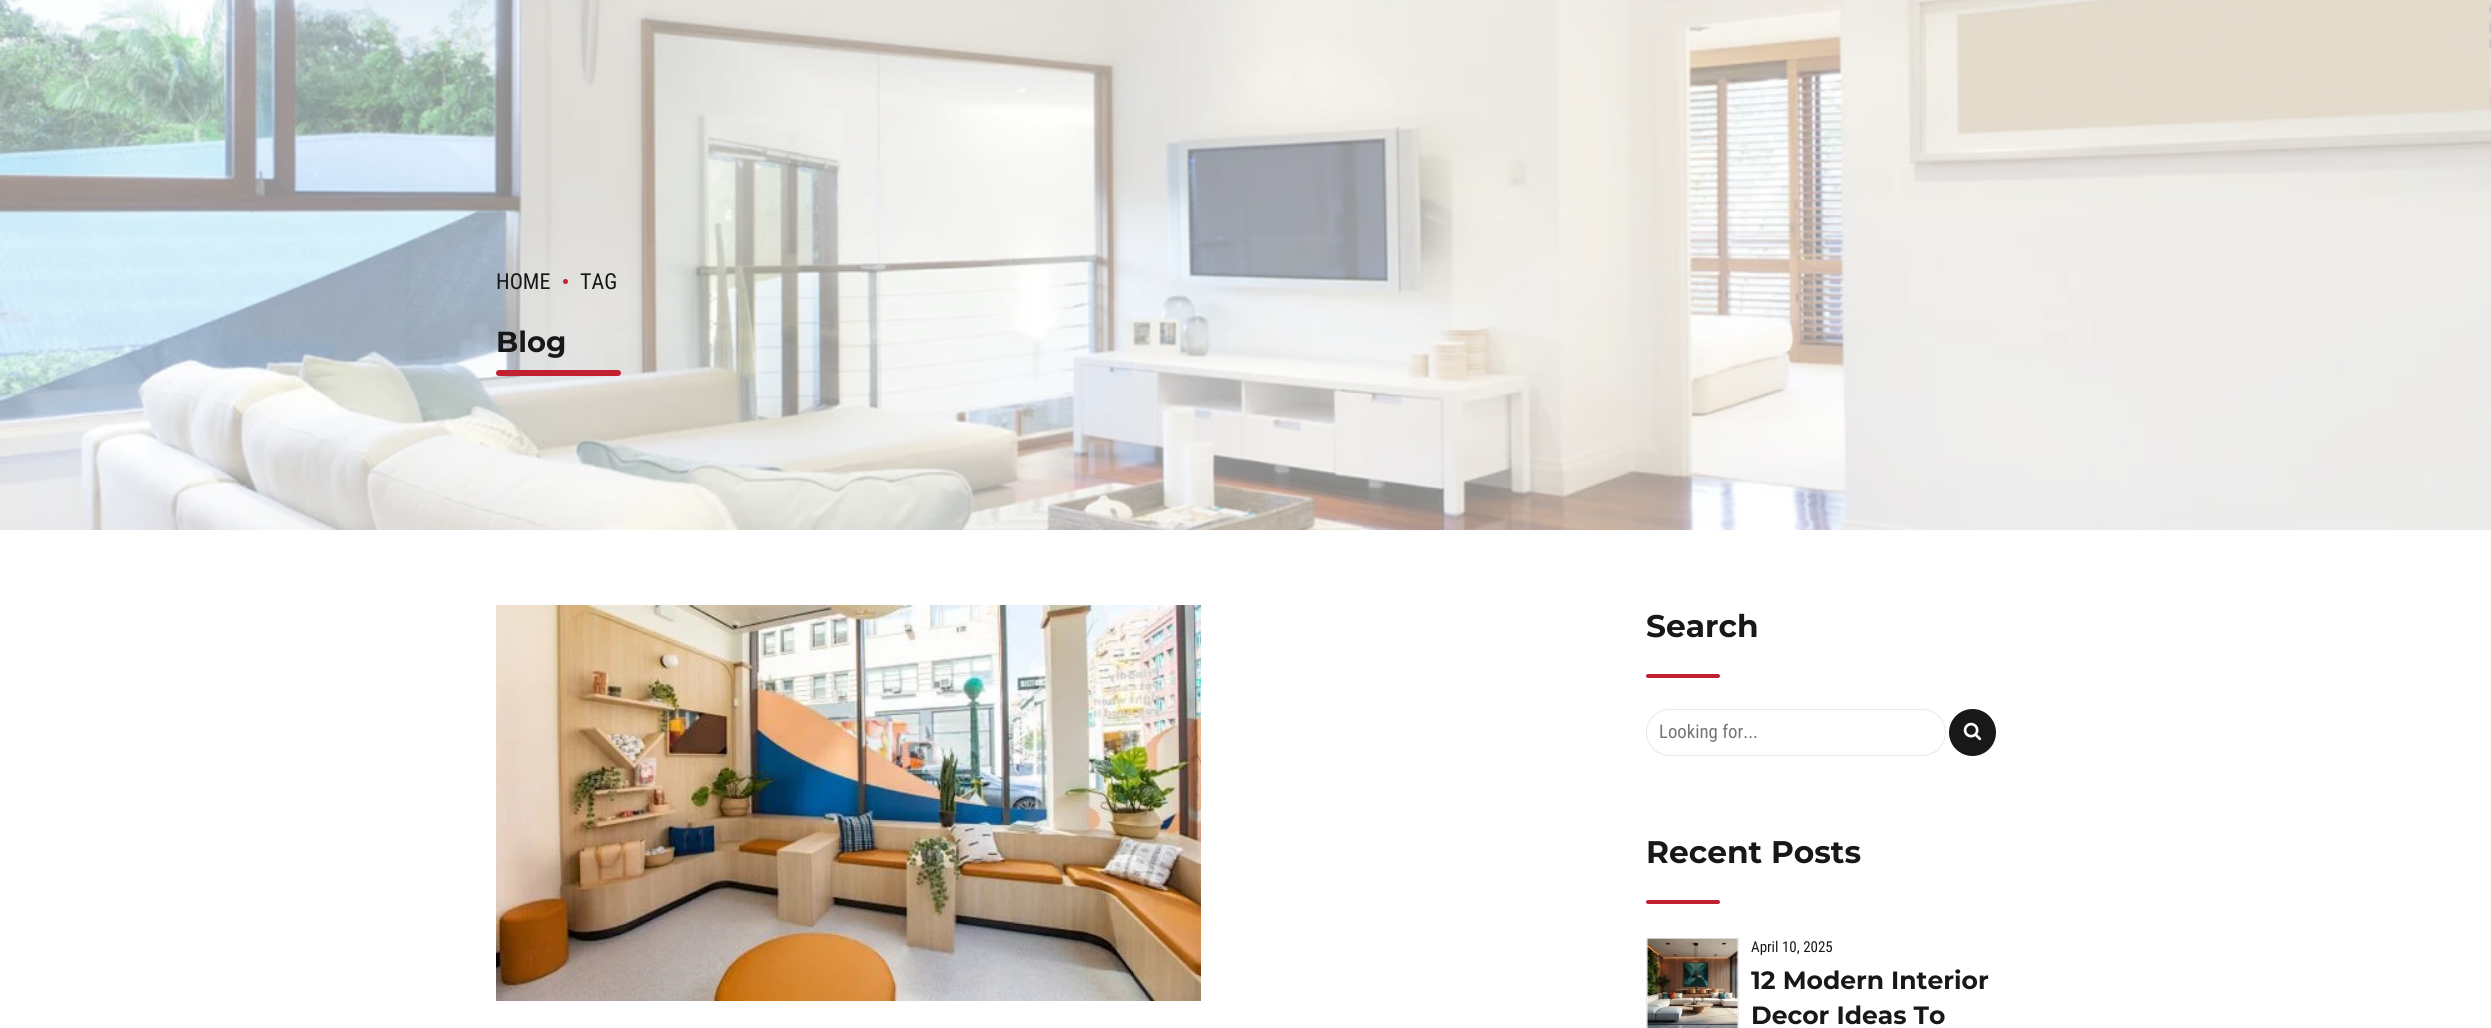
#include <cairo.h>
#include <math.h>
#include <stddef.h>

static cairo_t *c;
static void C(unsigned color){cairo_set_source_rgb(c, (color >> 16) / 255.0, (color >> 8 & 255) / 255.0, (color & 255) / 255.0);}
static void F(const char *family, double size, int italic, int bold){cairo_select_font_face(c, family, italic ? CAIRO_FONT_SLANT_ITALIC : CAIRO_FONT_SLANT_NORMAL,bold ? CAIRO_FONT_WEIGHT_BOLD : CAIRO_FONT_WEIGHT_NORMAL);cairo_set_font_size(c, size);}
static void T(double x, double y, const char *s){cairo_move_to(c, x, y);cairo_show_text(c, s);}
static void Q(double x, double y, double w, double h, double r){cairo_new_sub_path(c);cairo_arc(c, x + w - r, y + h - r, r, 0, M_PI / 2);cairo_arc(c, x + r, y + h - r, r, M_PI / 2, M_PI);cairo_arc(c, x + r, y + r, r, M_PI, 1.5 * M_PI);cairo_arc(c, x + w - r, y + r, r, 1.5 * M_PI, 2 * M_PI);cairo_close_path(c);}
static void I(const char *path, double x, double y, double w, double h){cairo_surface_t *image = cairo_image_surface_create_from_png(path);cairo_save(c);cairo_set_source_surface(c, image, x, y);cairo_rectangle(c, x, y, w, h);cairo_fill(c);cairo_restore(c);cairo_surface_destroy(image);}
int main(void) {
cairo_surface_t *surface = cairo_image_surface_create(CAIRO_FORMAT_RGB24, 2491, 1028);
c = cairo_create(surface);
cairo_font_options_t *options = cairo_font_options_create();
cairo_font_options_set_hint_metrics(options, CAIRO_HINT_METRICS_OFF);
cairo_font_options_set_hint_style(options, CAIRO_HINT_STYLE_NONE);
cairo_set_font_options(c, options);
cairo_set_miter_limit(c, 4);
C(0xffffff);
cairo_paint(c);
I("1.png",0,0,2491,530);
F("Roboto Condensed",22,0,0);
C(0x181818);
T(496,289,"HOME");
C(0xc12030);
cairo_new_path(c);
cairo_arc(c,565.5,281.5,2.5,0,2 * M_PI);
cairo_fill(c);
C(0x181818);
T(580,289,"TAG");
F("Montserrat",29,0,1);
T(496,352,"Blog");
C(0xc12030);
Q(496,370,125,6,3);
cairo_fill(c);
I("2.png",496,605,705,396);
F("Montserrat",31.25,0,1);
C(0x181818);
T(1646,637,"Search");
C(0xc12030);
Q(1646,674,74,4,2);
cairo_fill(c);
Q(1646.5,709.5,299,46,23);
C(0xe8e8e8);
cairo_set_line_width(c,1);
cairo_stroke(c);
F("Roboto Condensed",18.75,0,0);
C(0x757575);
T(1659,738,"Looking for...");
C(0x181818);
cairo_new_path(c);
cairo_arc(c,1972.5,732.5,23.5,0,2 * M_PI);
cairo_fill(c);
I("3.png",1963,722,19,19);
F("Montserrat",31.25,0,1);
T(1646,863,"Recent Posts");
C(0xc12030);
Q(1646,900,74,4,2);
cairo_fill(c);
cairo_rectangle(c,1646.5,938.5,92,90);
C(0xe8e8e8);
cairo_stroke(c);
I("4.png",1647,938,91,90);
F("Roboto Condensed",15,0,0);
C(0x181818);
T(1751,952,"April 10, 2025");
cairo_save(c);
cairo_rectangle(c,1751,964,245,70);
cairo_clip(c);
F("Montserrat",25,0,1);
T(1751,989,"12 Modern Interior");
cairo_restore(c);
F("Montserrat",25,0,1);
T(1751,1024,"Decor Ideas To");
cairo_surface_write_to_png(surface, "o.png");
cairo_font_options_destroy(options);
cairo_destroy(c);
cairo_surface_destroy(surface);
return 0;
}
